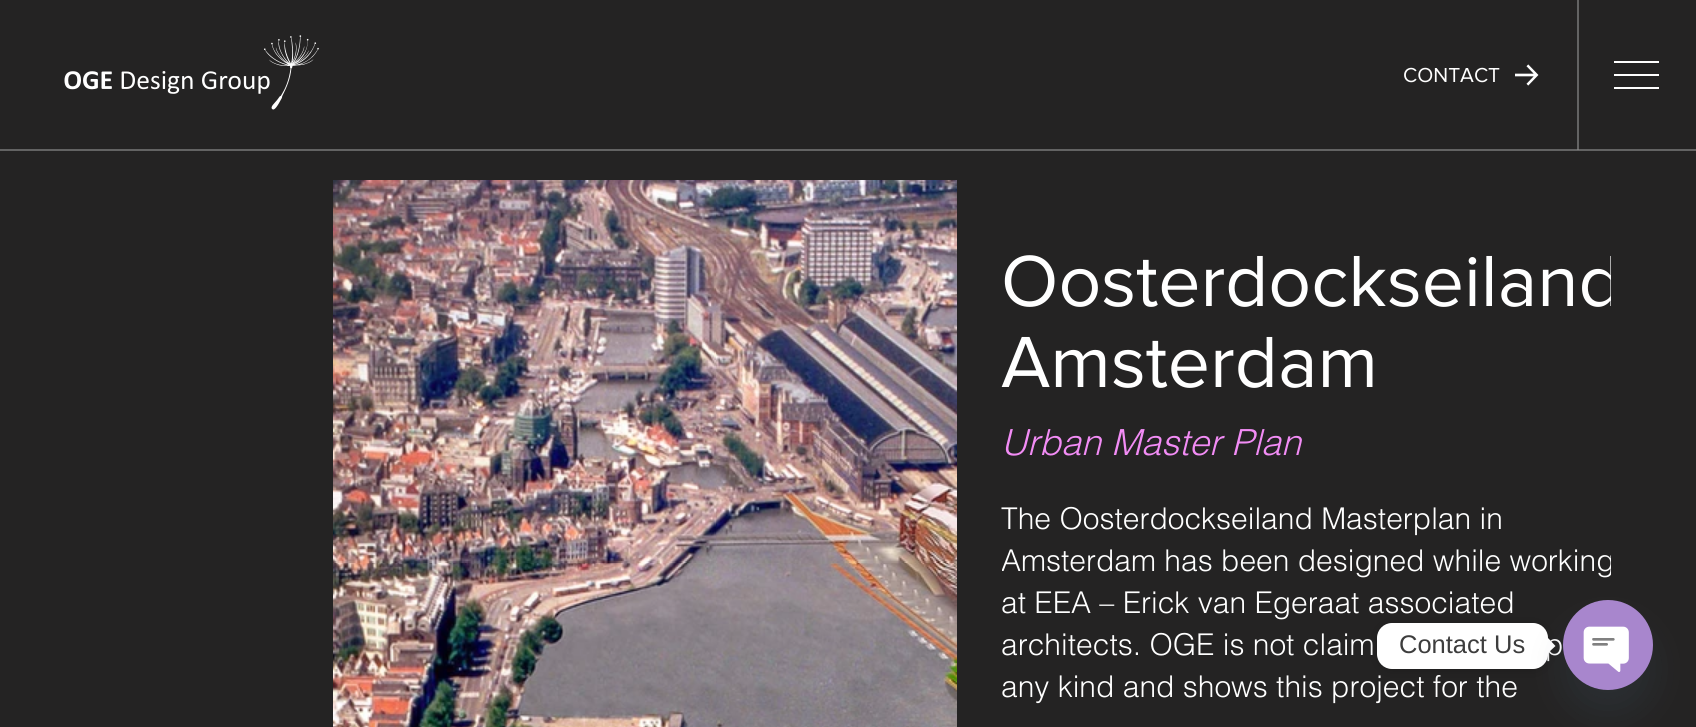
#include <cairo.h>
#include <math.h>
#include <stddef.h>

static cairo_t *c;
static void C(unsigned color){cairo_set_source_rgb(c, (color >> 16) / 255.0, (color >> 8 & 255) / 255.0, (color & 255) / 255.0);}
static void F(const char *family, double size, int italic, int bold){cairo_select_font_face(c, family, italic ? CAIRO_FONT_SLANT_ITALIC : CAIRO_FONT_SLANT_NORMAL,bold ? CAIRO_FONT_WEIGHT_BOLD : CAIRO_FONT_WEIGHT_NORMAL);cairo_set_font_size(c, size);}
static void T(double x, double y, const char *s){cairo_move_to(c, x, y);cairo_show_text(c, s);}
static void R(double x, double y, double w, double h){cairo_rectangle(c, x, y, w, h);cairo_fill(c);}
static void Q(double x, double y, double w, double h, double r){cairo_new_sub_path(c);cairo_arc(c, x + w - r, y + h - r, r, 0, M_PI / 2);cairo_arc(c, x + r, y + h - r, r, M_PI / 2, M_PI);cairo_arc(c, x + r, y + r, r, M_PI, 1.5 * M_PI);cairo_arc(c, x + w - r, y + r, r, 1.5 * M_PI, 2 * M_PI);cairo_close_path(c);}
static void S(double x, double y, double w, double h, double r, double blur, double alpha){cairo_push_group_with_content(c, CAIRO_CONTENT_ALPHA);cairo_set_operator(c, CAIRO_OPERATOR_SOURCE);for (int i = 15; i >= -15 && fmin(w, h) + blur * i / 3 > 0; i -= 2) {double e = blur * i / 6;cairo_set_source_rgba(c, 0, 0, 0, alpha * erfc((i - 1) / 8.5) / 2);Q(x - e, y - e, w + 2 * e, h + 2 * e, fmax(0, fmin(r + e + blur * .6, fmin(w, h) / 2 + e)));cairo_fill(c);}cairo_pattern_t *soft = cairo_pop_group(c);cairo_mask(c, soft);cairo_pattern_destroy(soft);}
static void I(const char *path, double x, double y, double w, double h){cairo_surface_t *image = cairo_image_surface_create_from_png(path);cairo_save(c);cairo_set_source_surface(c, image, x, y);cairo_rectangle(c, x, y, w, h);cairo_fill(c);cairo_restore(c);cairo_surface_destroy(image);}
int main(void) {
cairo_surface_t *surface = cairo_image_surface_create(CAIRO_FORMAT_RGB24, 1696, 727);
c = cairo_create(surface);
cairo_font_options_t *options = cairo_font_options_create();
cairo_font_options_set_hint_metrics(options, CAIRO_HINT_METRICS_OFF);
cairo_font_options_set_hint_style(options, CAIRO_HINT_STYLE_NONE);
cairo_set_font_options(c, options);
cairo_set_miter_limit(c, 4);
C(0x242323);
cairo_paint(c);
I("1.png",64,35,255,75);
C(0x636363);
R(1577,0,2,150);
R(0,149,1696,2);
C(0x7c7c7c);
R(1577,149,2,1);
F("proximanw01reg",21,0,0);
C(0xffffff);
T(1403,82,"CONTACT");
I("2.png",1515,64,24,22);
R(1614,61,45,2);
R(1614,74,45,2);
R(1614,87,45,2);
I("3.png",333,180,624,547);
cairo_save(c);
cairo_rectangle(c,1002,180,609,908);
cairo_clip(c);
F("proximanw01reg",75,0,0);
T(1001,306,"Oosterdockseiland");
cairo_restore(c);
F("proximanw01reg",75,0,0);
T(1001,387,"Amsterdam");
F("helvetica Light",36,1,0);
C(0xf28cf5);
T(1001,455,"Urban Master Plan");
F("helvetica Light",30,0,0);
C(0xffffff);
T(1001,529,"The Oosterdockseiland Masterplan in");
cairo_save(c);
cairo_rectangle(c,1002,180,609,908);
cairo_clip(c);
T(1001,571,"Amsterdam has been designed while working");
cairo_restore(c);
T(1001,613,"at EEA – Erick van Egeraat associated");
T(1001,655,"architects. OGE is not claim");
T(1545,655,"p");
T(1001,697,"any kind and shows this project for the");
C(0x000000);
S(1377,624,171,47,15,6,.15);
C(0xffffff);
Q(1377,623,171,46,15);
cairo_fill(c);
F("Liberation Sans",25.5,0,0);
C(0x3d3d3d);
T(1399,653,"Contact Us");
C(0xffffff);
cairo_new_path(c);
cairo_move_to(c,1548,653);
cairo_line_to(c,1548,638);
cairo_line_to(c,1555.5,646);
cairo_close_path(c);
cairo_fill(c);
C(0x49687e);
S(1563,624,90,90,45,18,.16);
I("4.png",1563,600,90,90);
cairo_surface_write_to_png(surface, "o.png");
cairo_font_options_destroy(options);
cairo_destroy(c);
cairo_surface_destroy(surface);
return 0;
}
